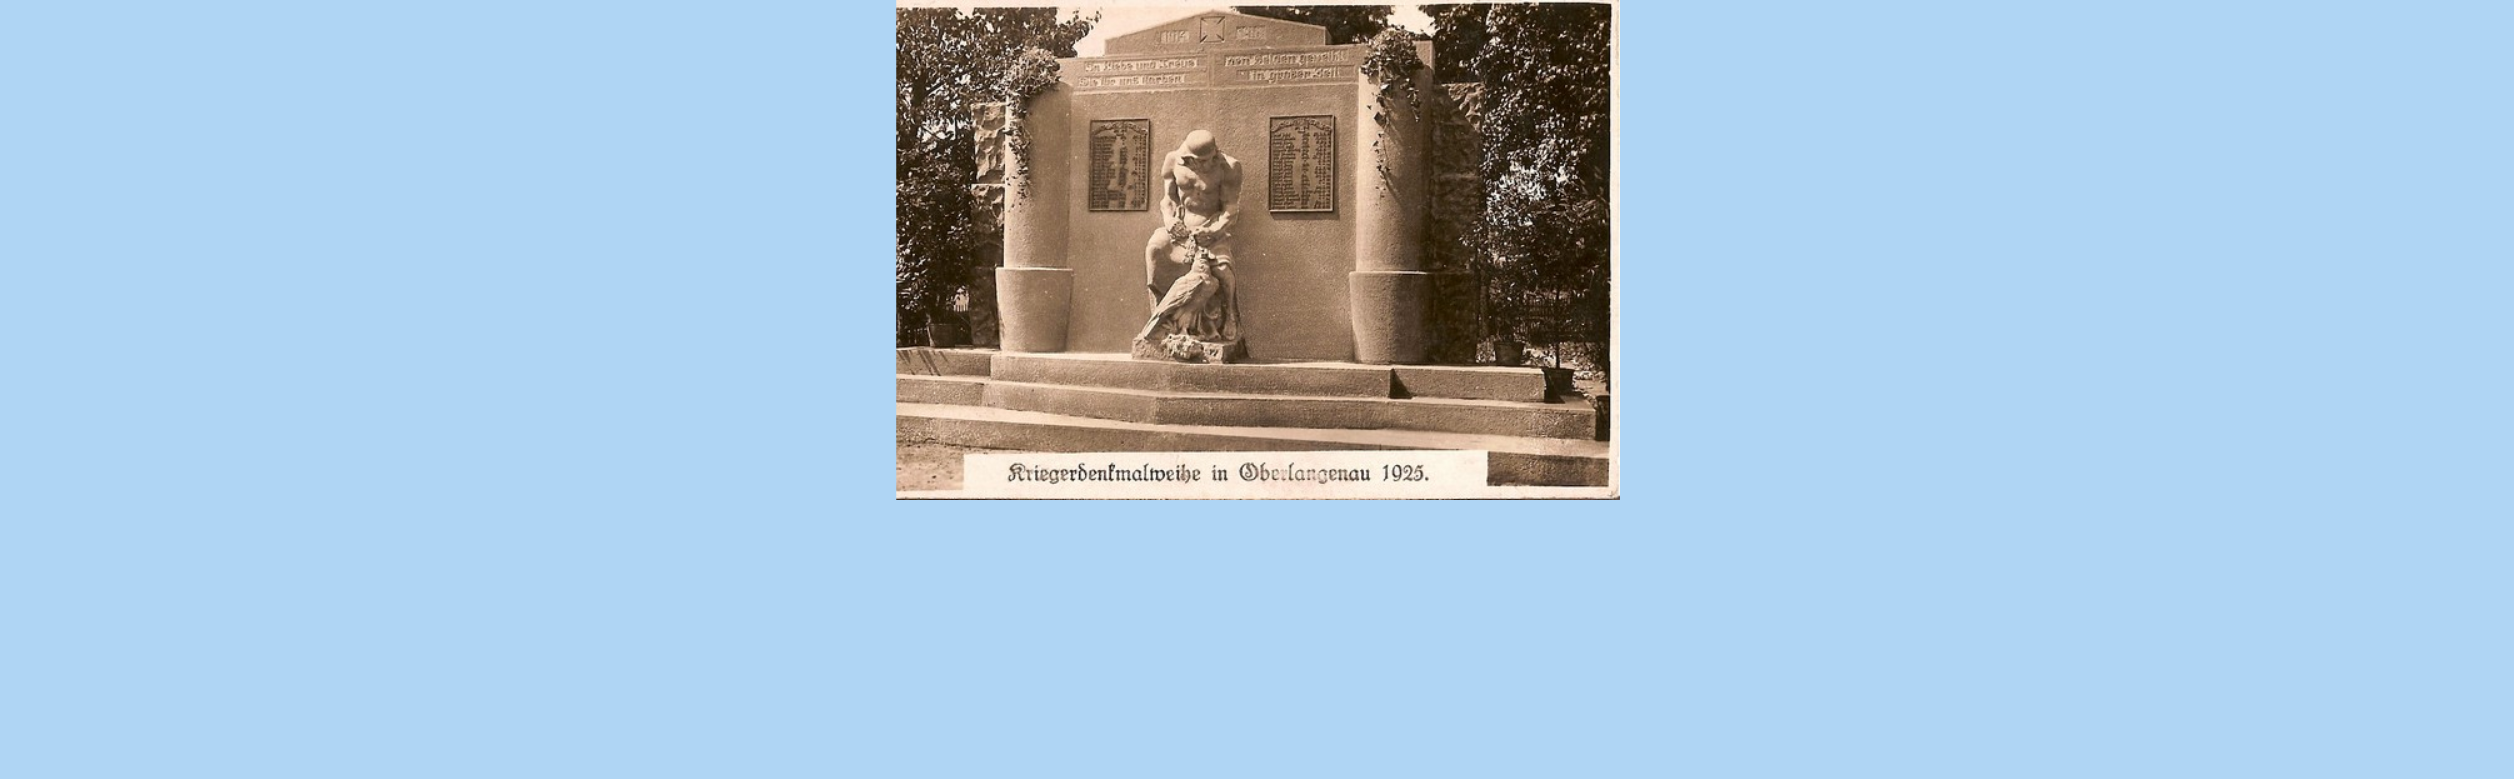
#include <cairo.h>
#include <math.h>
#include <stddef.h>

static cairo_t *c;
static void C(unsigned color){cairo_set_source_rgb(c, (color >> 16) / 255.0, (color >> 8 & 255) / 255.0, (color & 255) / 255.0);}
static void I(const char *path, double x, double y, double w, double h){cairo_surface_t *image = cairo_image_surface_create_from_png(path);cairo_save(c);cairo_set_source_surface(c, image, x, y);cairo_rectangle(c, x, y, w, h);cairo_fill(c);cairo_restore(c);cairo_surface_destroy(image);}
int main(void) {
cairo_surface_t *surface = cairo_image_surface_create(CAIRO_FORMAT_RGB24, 2514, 779);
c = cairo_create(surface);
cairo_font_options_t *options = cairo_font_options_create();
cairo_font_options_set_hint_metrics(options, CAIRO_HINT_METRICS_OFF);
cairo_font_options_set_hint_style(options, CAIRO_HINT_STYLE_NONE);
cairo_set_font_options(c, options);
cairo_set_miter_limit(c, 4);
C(0xafd5f4);
cairo_paint(c);
I("1.png",896,0,724,500);
cairo_surface_write_to_png(surface, "o.png");
cairo_font_options_destroy(options);
cairo_destroy(c);
cairo_surface_destroy(surface);
return 0;
}
